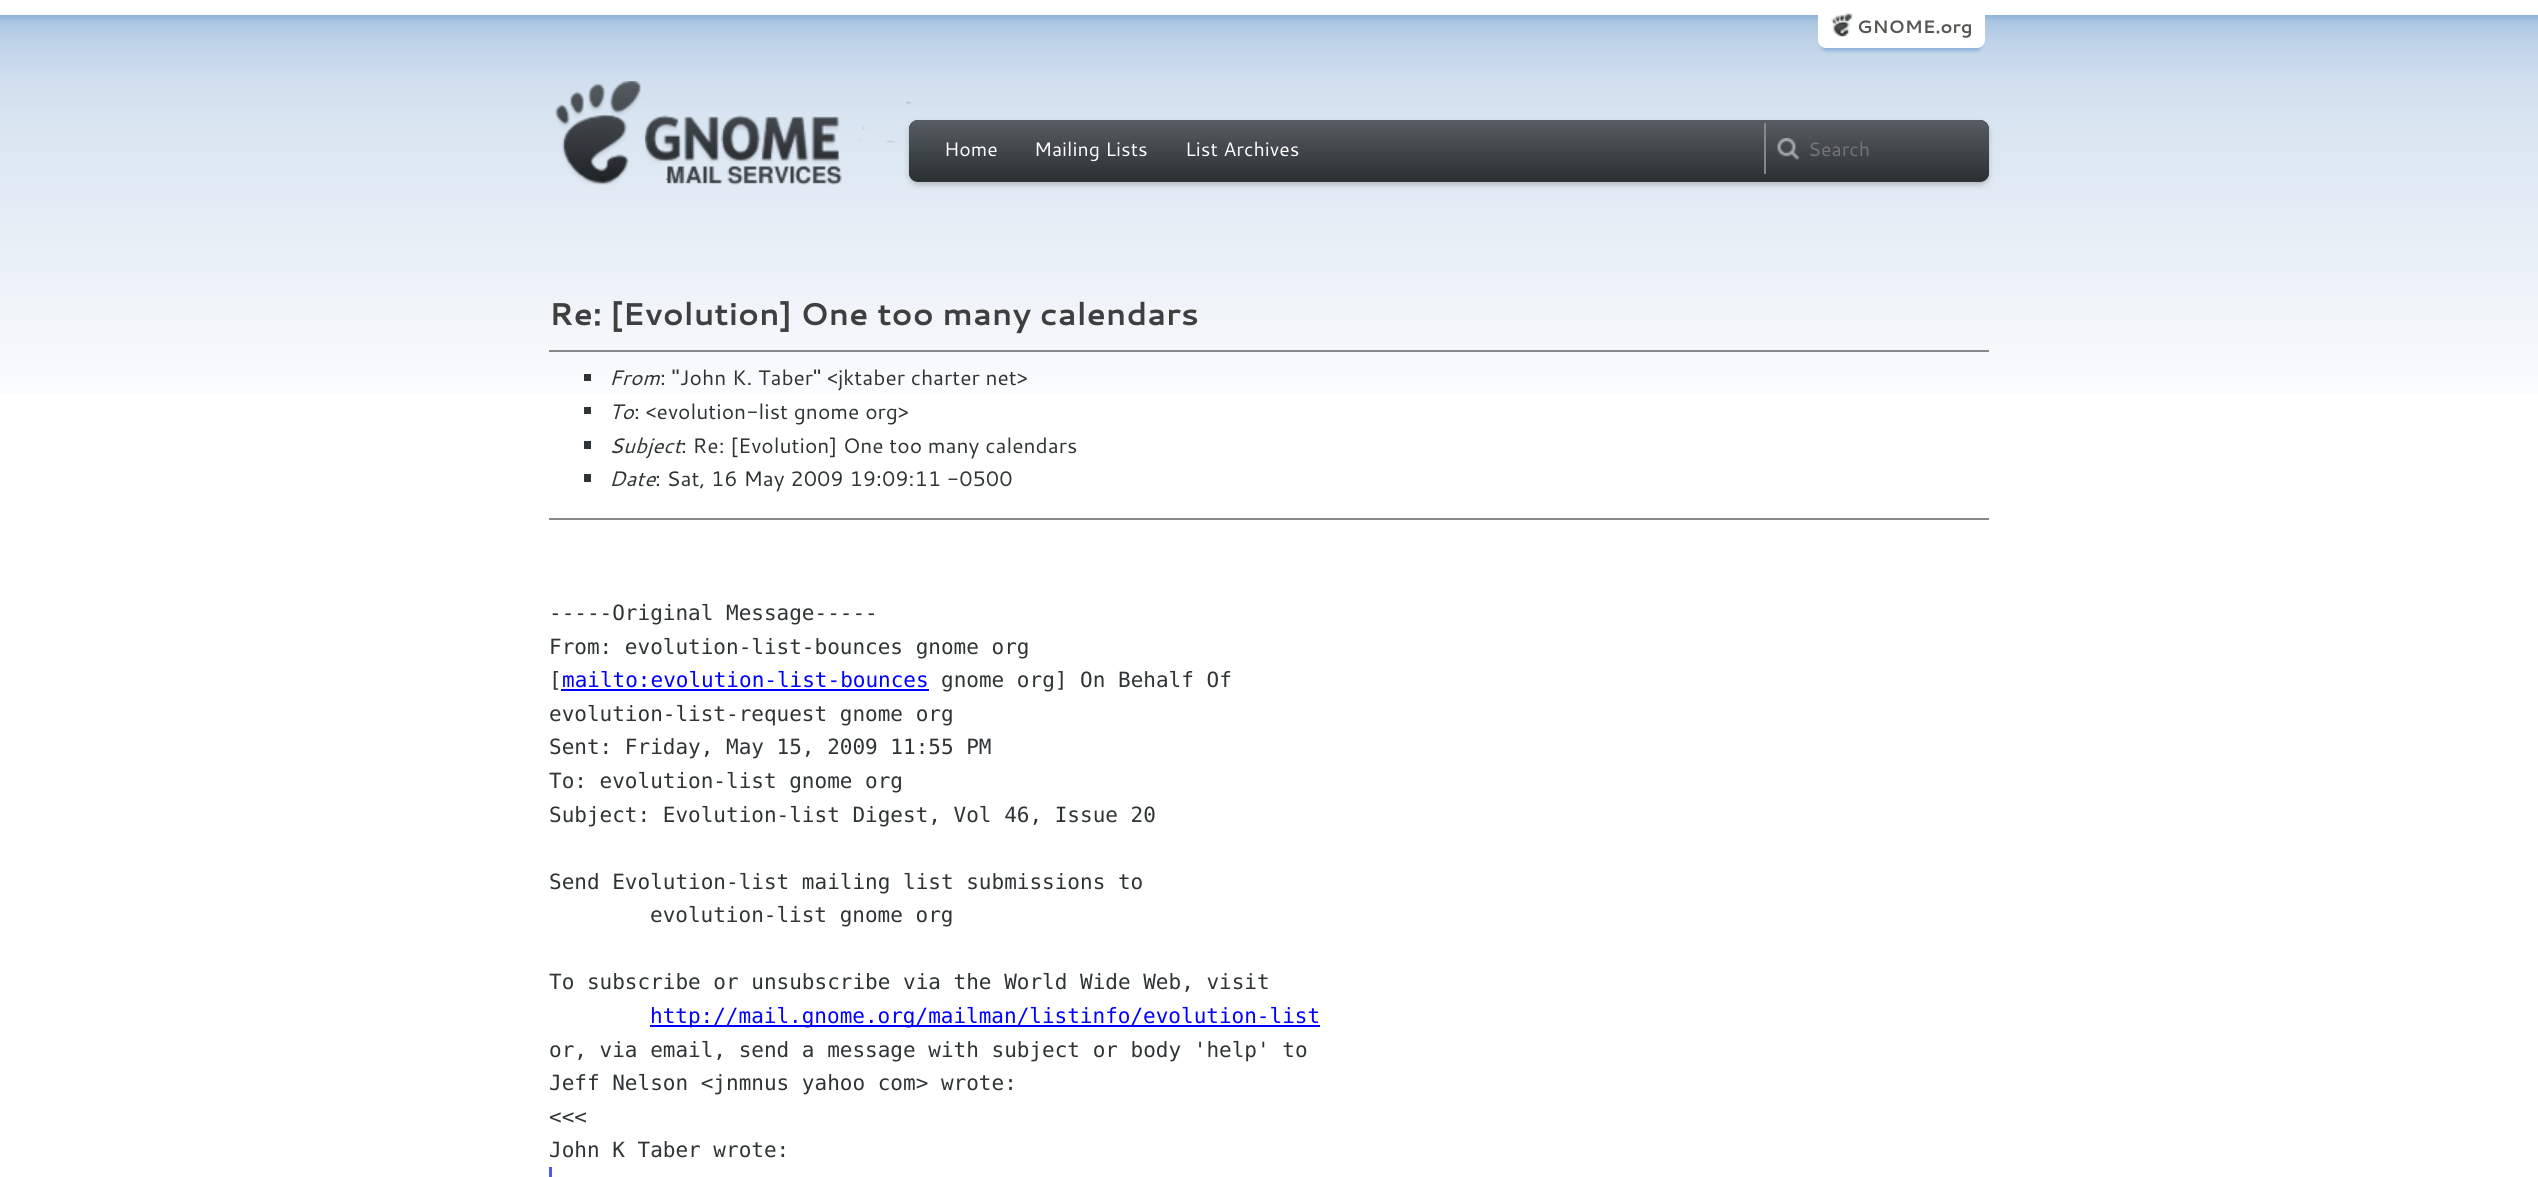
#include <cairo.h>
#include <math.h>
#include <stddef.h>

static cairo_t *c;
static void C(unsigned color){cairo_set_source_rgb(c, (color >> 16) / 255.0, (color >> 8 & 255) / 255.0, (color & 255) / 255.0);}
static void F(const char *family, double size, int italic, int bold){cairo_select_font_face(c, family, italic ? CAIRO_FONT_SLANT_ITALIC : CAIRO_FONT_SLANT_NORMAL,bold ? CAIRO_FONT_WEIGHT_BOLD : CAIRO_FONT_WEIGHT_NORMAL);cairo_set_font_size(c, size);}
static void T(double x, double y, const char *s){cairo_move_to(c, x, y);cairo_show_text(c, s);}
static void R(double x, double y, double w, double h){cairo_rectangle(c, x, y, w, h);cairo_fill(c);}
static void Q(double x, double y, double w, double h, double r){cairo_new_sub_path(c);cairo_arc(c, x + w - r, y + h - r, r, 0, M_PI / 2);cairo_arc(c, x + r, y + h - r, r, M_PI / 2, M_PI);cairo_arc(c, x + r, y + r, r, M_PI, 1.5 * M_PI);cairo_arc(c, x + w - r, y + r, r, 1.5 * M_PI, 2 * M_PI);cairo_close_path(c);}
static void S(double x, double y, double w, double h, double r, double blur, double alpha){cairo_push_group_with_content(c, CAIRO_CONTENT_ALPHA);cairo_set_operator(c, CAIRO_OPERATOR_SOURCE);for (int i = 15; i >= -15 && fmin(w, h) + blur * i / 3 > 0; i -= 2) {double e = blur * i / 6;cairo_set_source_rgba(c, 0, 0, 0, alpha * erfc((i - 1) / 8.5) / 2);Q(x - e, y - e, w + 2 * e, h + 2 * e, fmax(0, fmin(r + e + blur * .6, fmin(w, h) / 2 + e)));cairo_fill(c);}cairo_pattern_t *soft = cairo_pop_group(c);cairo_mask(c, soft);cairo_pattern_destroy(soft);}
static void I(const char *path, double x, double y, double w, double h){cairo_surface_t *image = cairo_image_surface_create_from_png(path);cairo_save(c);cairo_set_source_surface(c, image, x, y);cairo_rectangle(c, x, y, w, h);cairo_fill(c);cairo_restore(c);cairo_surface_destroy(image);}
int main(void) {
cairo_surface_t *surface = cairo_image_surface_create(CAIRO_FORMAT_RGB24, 2538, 1177);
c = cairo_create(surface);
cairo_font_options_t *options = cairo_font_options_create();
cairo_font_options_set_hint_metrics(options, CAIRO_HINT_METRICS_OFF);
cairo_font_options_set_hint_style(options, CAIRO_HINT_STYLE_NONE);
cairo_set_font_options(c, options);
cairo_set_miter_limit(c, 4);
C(0xffffff);
cairo_paint(c);
I("1.png",0,15,2538,379);
C(0x8fb3d9);
S(1821,15,161,36,5,1.5,1);
C(0xffffff);
Q(1818,6,167,42,8);
cairo_fill(c);
I("2.png",1831,13,22,24);
F("Cantarell",18,0,1);
C(0x555753);
T(1857,33,"GNOME.org");
I("3.png",554,81,358,104);
C(0x000000);
S(909,123,1080,62,9,3,.2);
C(0x2e3436);
Q(909,120,1080,62,9);
cairo_fill(c);
I("4.png",909,120,1080,60);
F("Cantarell",19.5,0,0);
C(0xffffff);
T(944,156,"Home");
T(1034,156,"Mailing Lists");
T(1185,156,"List Archives");
I("5.png",1777,138,23,22);
C(0x888888);
R(1764,123,2,51);
C(0x757575);
T(1808,156,"Search");
F("Cantarell",31.5,0,1);
C(0x3f3f3f);
T(549,325,"Re: [Evolution] One too many calendars");
C(0x888888);
R(549,350,1440,2);
C(0x2e3436);
R(584,374,7,7);
F("Cantarell",21,1,0);
T(609,385,"From");
F("Cantarell",21,0,0);
T(660,385,": \"John K. Taber\" <jktaber charter net>");
R(584,407,7,7);
F("Cantarell",21,1,0);
T(609,419,"To");
F("Cantarell",21,0,0);
T(634,419,": <evolution-list gnome org>");
R(584,441,7,8);
F("Cantarell",21,1,0);
T(609,453,"Subject");
F("Cantarell",21,0,0);
T(681,453,": Re: [Evolution] One too many calendars");
R(584,474,7,8);
F("Cantarell",21,1,0);
T(609,486,"Date");
F("Cantarell",21,0,0);
T(655,486,": Sat, 16 May 2009 19:09:11 -0500");
C(0x888888);
R(549,518,1440,2);
F("DejaVu Sans Mono",21,0,0);
C(0x2e3436);
T(549,620,"-----Original Message-----");
T(549,654,"From: evolution-list-bounces gnome org");
T(549,687,"[");
C(0x0000ff);
T(562,687,"mailto:evolution-list-bounces");
R(561,689,368,2);
C(0x2e3436);
T(941,687,"gnome org] On Behalf Of");
T(549,721,"evolution-list-request gnome org");
T(549,754,"Sent: Friday, May 15, 2009 11:55 PM");
T(549,788,"To: evolution-list gnome org");
T(549,822,"Subject: Evolution-list Digest, Vol 46, Issue 20");
T(549,889,"Send Evolution-list mailing list submissions to");
T(650,922,"evolution-list gnome org");
T(549,989,"To subscribe or unsubscribe via the World Wide Web, visit");
C(0x0000ff);
R(650,1025,670,2);
T(650,1023,"http://mail.gnome.org/mailman/listinfo/evolution-list");
C(0x2e3436);
T(549,1057,"or, via email, send a message with subject or body 'help' to");
T(549,1090,"Jeff Nelson <jnmnus yahoo com> wrote:");
T(549,1124,"<<<");
T(549,1157,"John K Taber wrote:");
C(0x5555ee);
R(549,1167,3,10);
cairo_surface_write_to_png(surface, "o.png");
cairo_font_options_destroy(options);
cairo_destroy(c);
cairo_surface_destroy(surface);
return 0;
}
